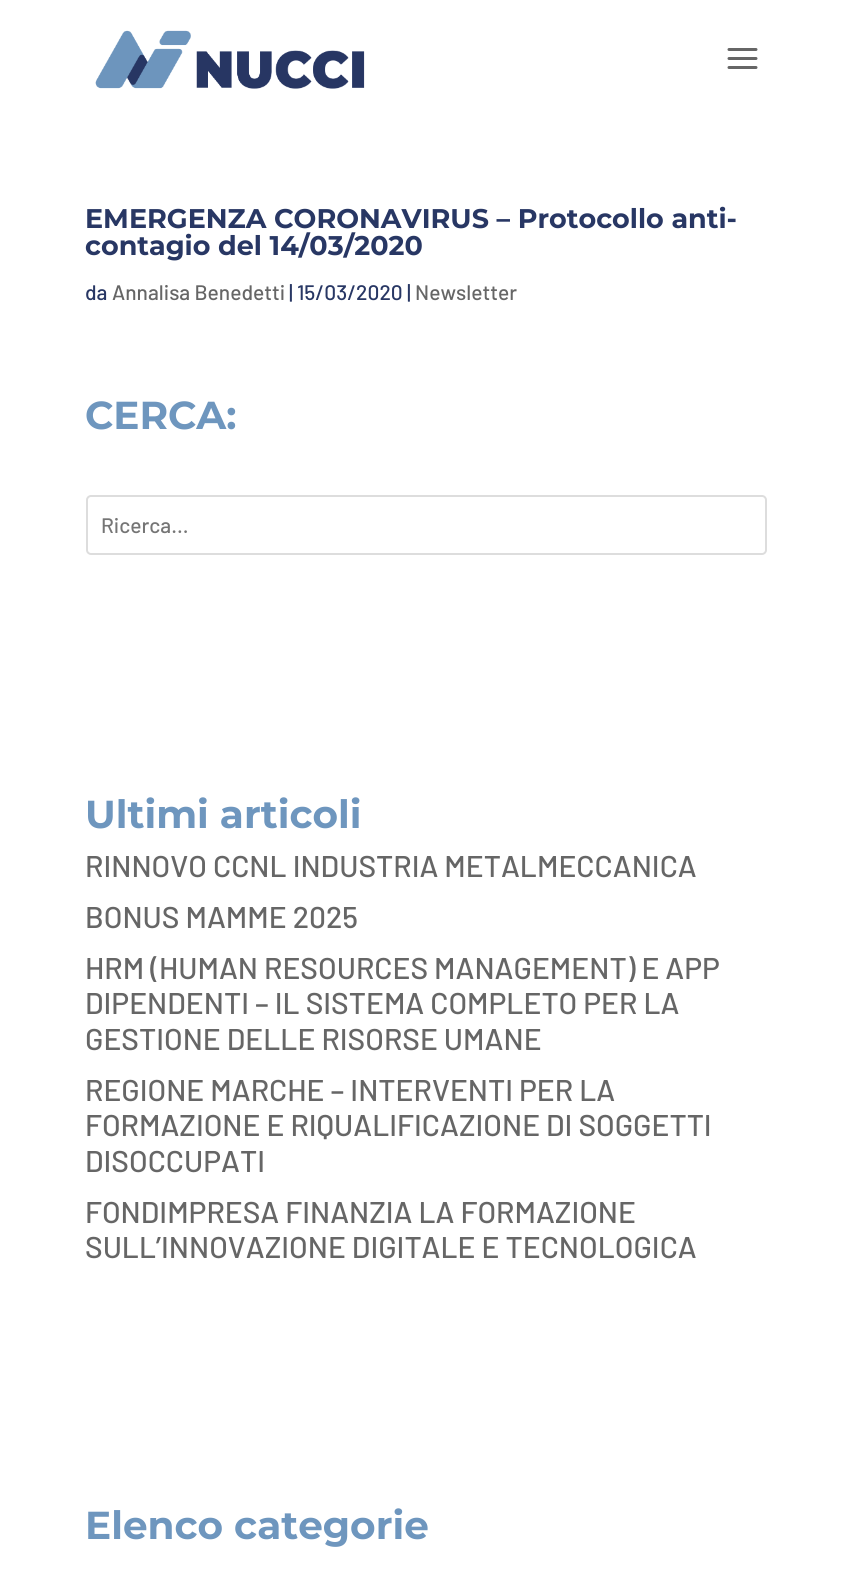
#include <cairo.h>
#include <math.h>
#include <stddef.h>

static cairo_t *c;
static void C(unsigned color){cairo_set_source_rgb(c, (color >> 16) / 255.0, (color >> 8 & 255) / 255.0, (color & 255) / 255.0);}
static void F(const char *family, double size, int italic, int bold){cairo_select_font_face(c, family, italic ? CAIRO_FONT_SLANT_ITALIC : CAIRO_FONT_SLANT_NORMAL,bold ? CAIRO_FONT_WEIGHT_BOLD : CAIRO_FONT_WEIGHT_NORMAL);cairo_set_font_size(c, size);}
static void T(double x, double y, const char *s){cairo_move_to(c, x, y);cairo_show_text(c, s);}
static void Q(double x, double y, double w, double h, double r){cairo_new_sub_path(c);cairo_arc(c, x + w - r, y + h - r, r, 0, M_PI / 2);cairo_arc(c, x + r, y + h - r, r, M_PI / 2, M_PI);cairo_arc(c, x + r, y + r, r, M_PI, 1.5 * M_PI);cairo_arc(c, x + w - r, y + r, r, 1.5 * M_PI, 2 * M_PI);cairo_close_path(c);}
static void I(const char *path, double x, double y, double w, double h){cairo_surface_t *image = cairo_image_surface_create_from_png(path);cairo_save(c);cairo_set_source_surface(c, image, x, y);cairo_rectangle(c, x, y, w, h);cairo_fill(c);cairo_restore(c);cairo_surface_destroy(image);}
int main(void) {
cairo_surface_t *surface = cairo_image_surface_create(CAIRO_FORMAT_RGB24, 851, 1583);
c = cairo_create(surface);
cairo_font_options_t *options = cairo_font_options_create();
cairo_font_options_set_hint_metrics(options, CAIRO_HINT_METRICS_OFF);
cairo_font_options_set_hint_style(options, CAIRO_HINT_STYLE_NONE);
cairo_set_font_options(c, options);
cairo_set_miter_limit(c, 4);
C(0xffffff);
cairo_paint(c);
I("1.png",95,30,270,59);
I("2.png",727,48,31,21);
F("Montserrat",27,0,1);
C(0x283764);
T(85,228,"EMERGENZA CORONAVIRUS – Protocollo anti-");
T(85,255,"contagio del 14/03/2020");
F("Barlow Medium",21,0,0);
T(85,300,"da");
C(0x666666);
T(112,300,"Annalisa Benedetti");
C(0x283764);
T(289,300,"| 15/03/2020 |");
C(0x666666);
T(415,300,"Newsletter");
F("Montserrat",39,0,1);
C(0x6e96be);
T(85,429,"CERCA:");
Q(87,496,679,58,4);
C(0xdddddd);
cairo_stroke(c);
F("Barlow Medium",21,0,0);
C(0x757575);
T(101,533,"Ricerca...");
F("Montserrat",39,0,1);
C(0x6e96be);
T(85,828,"Ultimi articoli");
F("Barlow Medium",30,0,0);
C(0x666666);
T(85,877,"RINNOVO CCNL INDUSTRIA METALMECCANICA");
T(85,928,"BONUS MAMME 2025");
T(85,979,"HRM (HUMAN RESOURCES MANAGEMENT) E APP");
T(85,1014,"DIPENDENTI – IL SISTEMA COMPLETO PER LA");
T(85,1050,"GESTIONE DELLE RISORSE UMANE");
T(85,1101,"REGIONE MARCHE – INTERVENTI PER LA");
T(85,1136,"FORMAZIONE E RIQUALIFICAZIONE DI SOGGETTI");
T(85,1172,"DISOCCUPATI");
T(85,1223,"FONDIMPRESA FINANZIA LA FORMAZIONE");
T(85,1258,"SULL’INNOVAZIONE DIGITALE E TECNOLOGICA");
F("Montserrat",39,0,1);
C(0x6e96be);
T(85,1539,"Elenco categorie");
cairo_surface_write_to_png(surface, "o.png");
cairo_font_options_destroy(options);
cairo_destroy(c);
cairo_surface_destroy(surface);
return 0;
}
